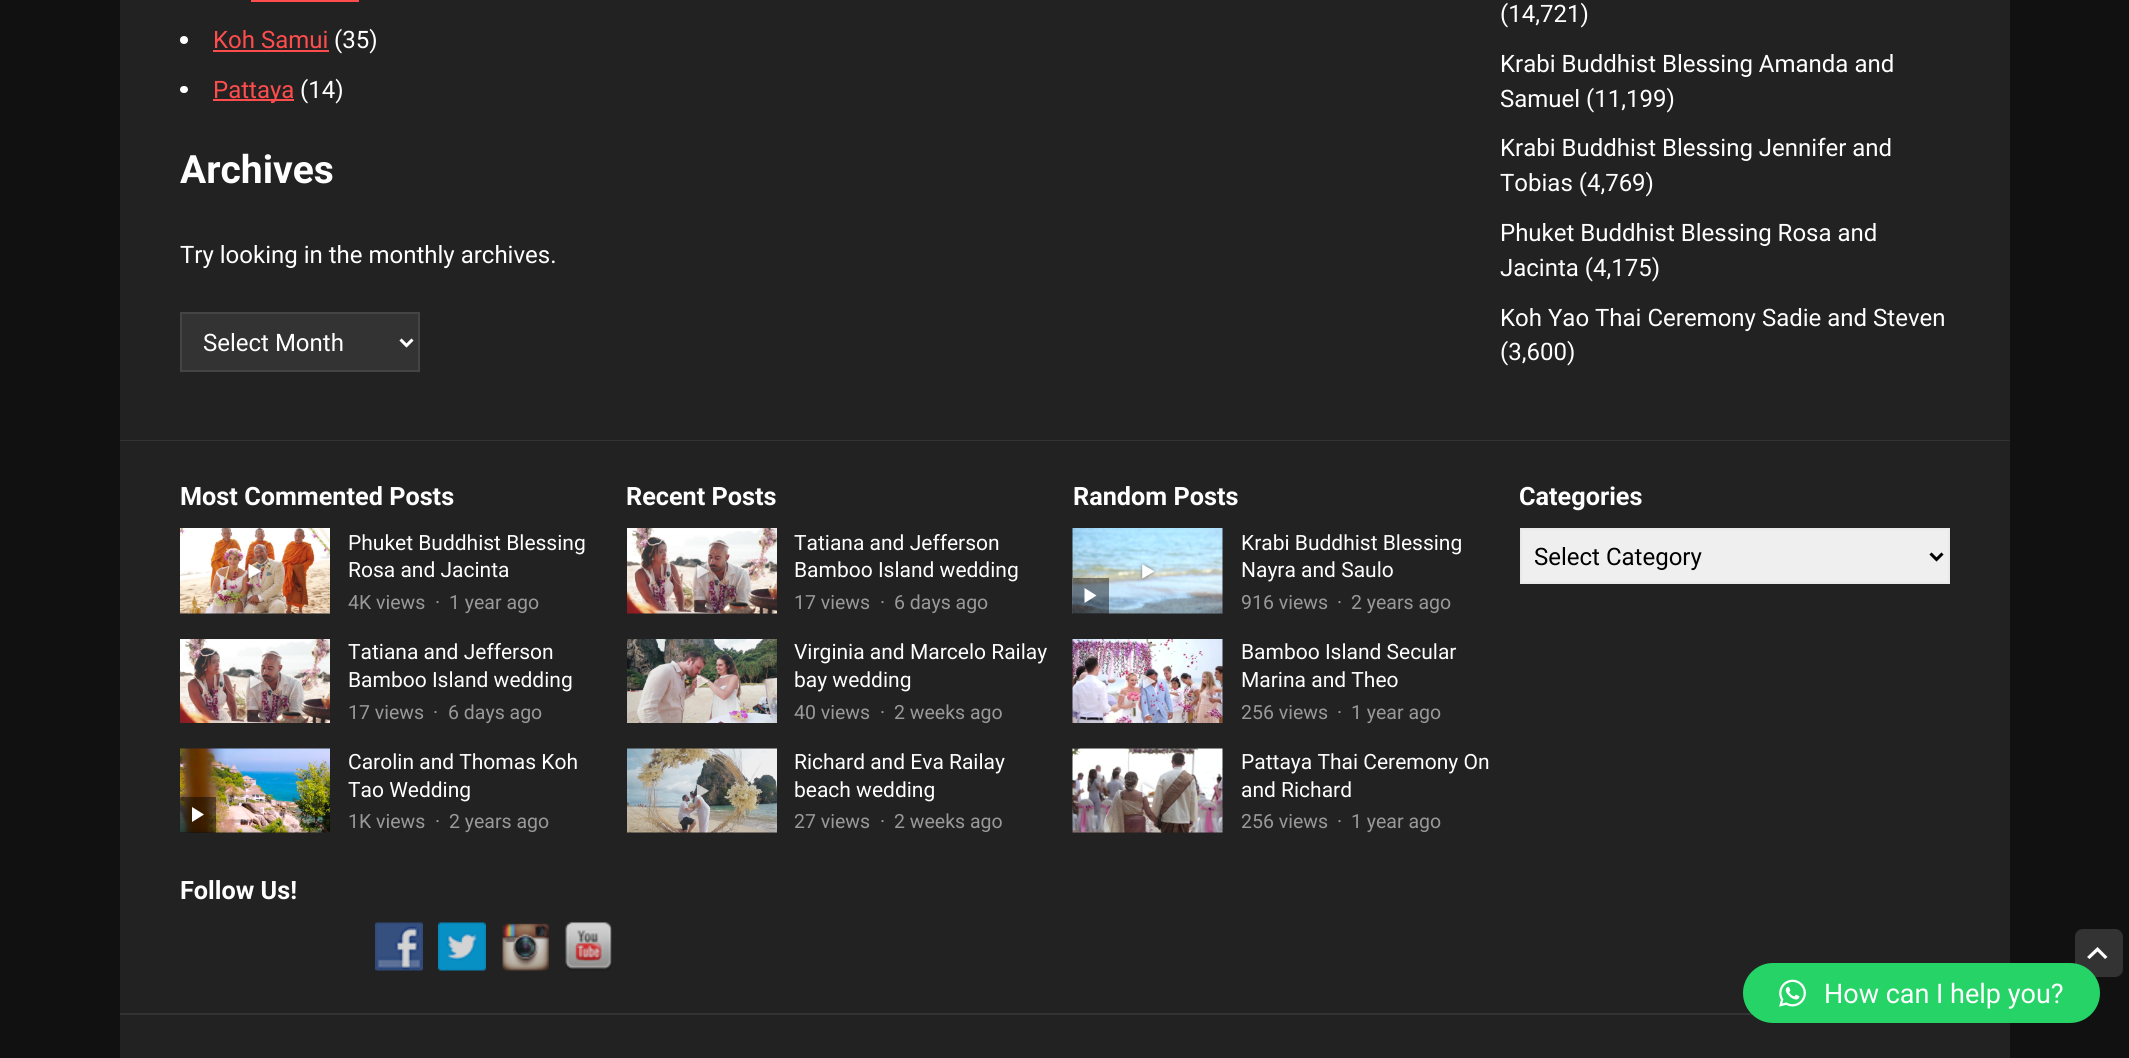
#include <cairo.h>
#include <math.h>
#include <stddef.h>

static cairo_t *c;
static void C(unsigned color){cairo_set_source_rgb(c, (color >> 16) / 255.0, (color >> 8 & 255) / 255.0, (color & 255) / 255.0);}
static void F(const char *family, double size, int italic, int bold){cairo_select_font_face(c, family, italic ? CAIRO_FONT_SLANT_ITALIC : CAIRO_FONT_SLANT_NORMAL,bold ? CAIRO_FONT_WEIGHT_BOLD : CAIRO_FONT_WEIGHT_NORMAL);cairo_set_font_size(c, size);}
static void T(double x, double y, const char *s){cairo_move_to(c, x, y);cairo_show_text(c, s);}
static void R(double x, double y, double w, double h){cairo_rectangle(c, x, y, w, h);cairo_fill(c);}
static void Q(double x, double y, double w, double h, double r){cairo_new_sub_path(c);cairo_arc(c, x + w - r, y + h - r, r, 0, M_PI / 2);cairo_arc(c, x + r, y + h - r, r, M_PI / 2, M_PI);cairo_arc(c, x + r, y + r, r, M_PI, 1.5 * M_PI);cairo_arc(c, x + w - r, y + r, r, 1.5 * M_PI, 2 * M_PI);cairo_close_path(c);}
static void I(const char *path, double x, double y, double w, double h){cairo_surface_t *image = cairo_image_surface_create_from_png(path);cairo_save(c);cairo_set_source_surface(c, image, x, y);cairo_rectangle(c, x, y, w, h);cairo_fill(c);cairo_restore(c);cairo_surface_destroy(image);}
int main(void) {
cairo_surface_t *surface = cairo_image_surface_create(CAIRO_FORMAT_RGB24, 2129, 1058);
c = cairo_create(surface);
cairo_font_options_t *options = cairo_font_options_create();
cairo_font_options_set_hint_metrics(options, CAIRO_HINT_METRICS_OFF);
cairo_font_options_set_hint_style(options, CAIRO_HINT_STYLE_NONE);
cairo_set_font_options(c, options);
cairo_set_miter_limit(c, 4);
C(0x111111);
cairo_paint(c);
C(0x222222);
R(120,0,1890,1058);
C(0xff4c4c);
R(251,0,108,2);
C(0xffffff);
cairo_arc(c,184,40,4,0,2 * M_PI);
cairo_fill(c);
F("Roboto",24,0,0);
C(0xff4c4c);
T(213,48,"Koh Samui");
R(213,50,116,2);
C(0xffffff);
T(334,48,"(35)");
Q(180,86,8,7,3.5);
cairo_fill(c);
C(0xff4c4c);
R(213,99,81,2);
T(213,98,"Pattaya");
C(0xffffff);
T(300,98,"(14)");
F("Roboto",39,0,1);
T(180,183,"Archives");
F("Roboto",24,0,0);
T(180,263,"Try looking in the monthly archives.");
C(0x333333);
cairo_rectangle(c,181,313,238,58);
cairo_fill_preserve(c);
C(0x444444);
cairo_stroke(c);
cairo_new_path(c);
cairo_move_to(c,400.5,339.5);
cairo_line_to(c,406.5,345.5);
cairo_line_to(c,412.5,339.5);
C(0xffffff);
cairo_set_line_width(c,3);
cairo_stroke(c);
T(203,351,"Select Month");
T(1500,22,"(14,721)");
T(1500,72,"Krabi Buddhist Blessing Amanda and");
T(1500,107,"Samuel (11,199)");
T(1500,156,"Krabi Buddhist Blessing Jennifer and");
T(1500,191,"Tobias (4,769)");
T(1500,241,"Phuket Buddhist Blessing Rosa and");
T(1500,276,"Jacinta (4,175)");
T(1500,326,"Koh Yao Thai Ceremony Sadie and Steven");
T(1500,360,"(3,600)");
C(0x333333);
R(120,440,1890,1);
R(120,1013,1633,2);
F("Roboto",25.25,0,1);
C(0xffffff);
T(180,505,"Most Commented Posts");
I("1.png",180,528,150,86);
F("Roboto",21,0,0);
T(348,550,"Phuket Buddhist Blessing");
T(348,577,"Rosa and Jacinta");
F("Roboto",19.5,0,0);
C(0x999999);
T(348,609,"4K views");
T(435,609,"·");
T(449,609,"1 year ago");
I("2.png",180,639,150,84);
F("Roboto",21,0,0);
C(0xffffff);
T(348,659,"Tatiana and Jefferson");
T(348,687,"Bamboo Island wedding");
F("Roboto",19.5,0,0);
C(0x999999);
T(348,719,"17 views");
T(433,719,"·");
T(448,719,"6 days ago");
I("3.png",180,748,150,85);
cairo_set_source_rgba(c,0,0,0,0.45);
R(180,797,36,36);
C(0xffffff);
cairo_new_path(c);
cairo_move_to(c,192,807);
cairo_line_to(c,204,814.5);
cairo_line_to(c,192,822);
cairo_close_path(c);
cairo_fill(c);
F("Roboto",21,0,0);
T(348,769,"Carolin and Thomas Koh");
T(348,797,"Tao Wedding");
F("Roboto",19.5,0,0);
C(0x999999);
T(348,828,"1K views");
T(435,828,"·");
T(449,828,"2 years ago");
F("Roboto",25.25,0,1);
C(0xffffff);
T(626,505,"Recent Posts");
I("4.png",627,528,150,86);
F("Roboto",21,0,0);
T(794,550,"Tatiana and Jefferson");
T(794,577,"Bamboo Island wedding");
F("Roboto",19.5,0,0);
C(0x999999);
T(794,609,"17 views");
T(880,609,"·");
T(894,609,"6 days ago");
I("5.png",627,639,150,84);
F("Roboto",21,0,0);
C(0xffffff);
T(794,659,"Virginia and Marcelo Railay");
T(794,687,"bay wedding");
F("Roboto",19.5,0,0);
C(0x999999);
T(794,719,"40 views");
T(880,719,"·");
T(894,719,"2 weeks ago");
I("6.png",627,748,150,85);
F("Roboto",21,0,0);
C(0xffffff);
T(794,769,"Richard and Eva Railay");
T(794,797,"beach wedding");
F("Roboto",19.5,0,0);
C(0x999999);
T(794,828,"27 views");
T(880,828,"·");
T(894,828,"2 weeks ago");
F("Roboto",25.25,0,1);
C(0xffffff);
T(1073,505,"Random Posts");
I("7.png",1072,528,151,86);
cairo_set_source_rgba(c,0,0,0,0.45);
R(1073,578,36,36);
C(0xffffff);
cairo_new_path(c);
cairo_move_to(c,1084.5,588);
cairo_line_to(c,1096.5,595.5);
cairo_line_to(c,1084.5,603);
cairo_close_path(c);
cairo_fill(c);
F("Roboto",21,0,0);
T(1241,550,"Krabi Buddhist Blessing");
T(1241,577,"Nayra and Saulo");
F("Roboto",19.5,0,0);
C(0x999999);
T(1241,609,"916 views");
T(1337,609,"·");
T(1351,609,"2 years ago");
I("8.png",1072,639,151,84);
F("Roboto",21,0,0);
C(0xffffff);
T(1241,659,"Bamboo Island Secular");
T(1241,687,"Marina and Theo");
F("Roboto",19.5,0,0);
C(0x999999);
T(1241,719,"256 views");
T(1337,719,"·");
T(1351,719,"1 year ago");
I("9.png",1072,748,151,85);
F("Roboto",21,0,0);
C(0xffffff);
T(1241,769,"Pattaya Thai Ceremony On");
T(1241,797,"and Richard");
F("Roboto",19.5,0,0);
C(0x999999);
T(1241,828,"256 views");
T(1337,828,"·");
T(1351,828,"1 year ago");
F("Roboto",25.25,0,1);
C(0xffffff);
T(1519,505,"Categories");
C(0xefefef);
cairo_rectangle(c,1521,529,428,54);
cairo_fill_preserve(c);
C(0xe9e9e9);
cairo_set_line_width(c,2);
cairo_stroke(c);
cairo_new_path(c);
cairo_move_to(c,1930.5,553.5);
cairo_line_to(c,1936.5,559.5);
cairo_line_to(c,1942.5,553.5);
C(0x000000);
cairo_set_line_width(c,3);
cairo_stroke(c);
F("Roboto",24,0,0);
T(1534,565,"Select Category");
F("Roboto",25.25,0,1);
C(0xffffff);
T(180,899,"Follow Us!");
I("10.png",375,922,48,49);
I("11.png",438,922,48,49);
I("12.png",502,923,47,48);
I("13.png",565,922,47,49);
C(0x333333);
Q(2075,929,48,48,8);
cairo_fill(c);
C(0xffffff);
cairo_new_path(c);
cairo_move_to(c,2105,959);
cairo_line_to(c,2097.5,951.5);
cairo_line_to(c,2089.5,959);
cairo_line_to(c,2087,957);
cairo_line_to(c,2097.5,947);
cairo_line_to(c,2107.5,957);
cairo_close_path(c);
cairo_fill(c);
C(0x25d366);
Q(1743,963,357,60,30);
cairo_fill(c);
I("14.png",1779,979,27,28);
F("Roboto",27,0,0);
C(0xffffff);
T(1824,1003,"How can I help you?");
cairo_surface_write_to_png(surface, "o.png");
cairo_font_options_destroy(options);
cairo_destroy(c);
cairo_surface_destroy(surface);
return 0;
}
